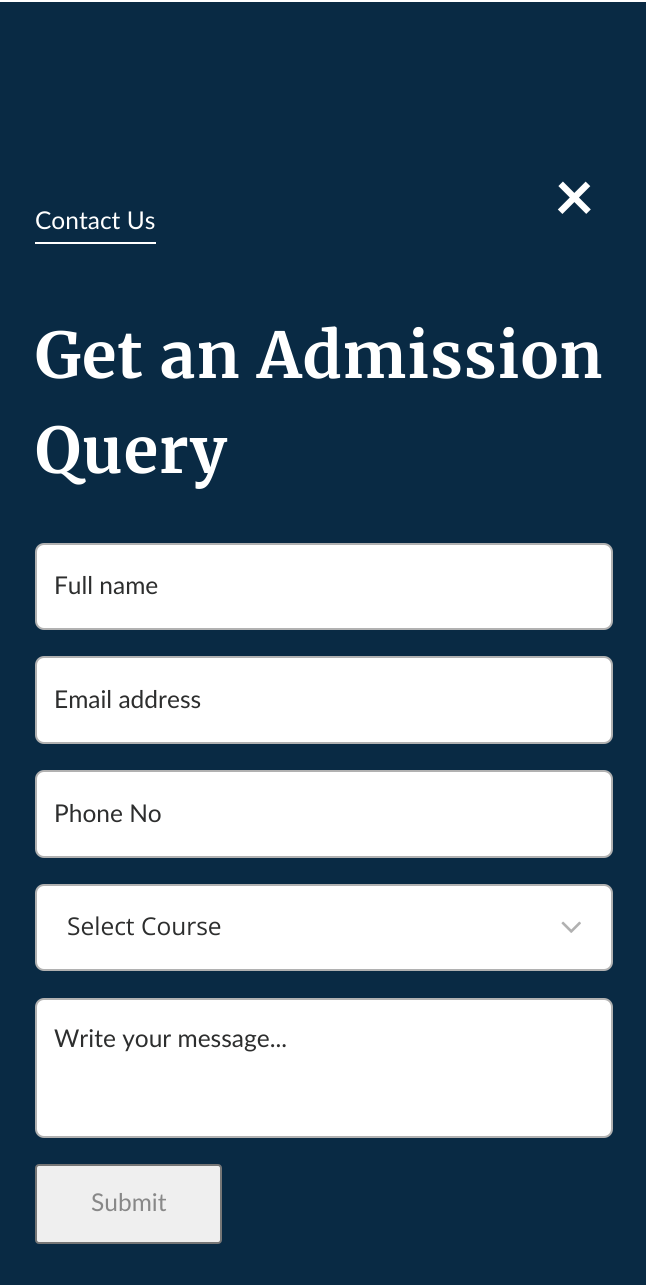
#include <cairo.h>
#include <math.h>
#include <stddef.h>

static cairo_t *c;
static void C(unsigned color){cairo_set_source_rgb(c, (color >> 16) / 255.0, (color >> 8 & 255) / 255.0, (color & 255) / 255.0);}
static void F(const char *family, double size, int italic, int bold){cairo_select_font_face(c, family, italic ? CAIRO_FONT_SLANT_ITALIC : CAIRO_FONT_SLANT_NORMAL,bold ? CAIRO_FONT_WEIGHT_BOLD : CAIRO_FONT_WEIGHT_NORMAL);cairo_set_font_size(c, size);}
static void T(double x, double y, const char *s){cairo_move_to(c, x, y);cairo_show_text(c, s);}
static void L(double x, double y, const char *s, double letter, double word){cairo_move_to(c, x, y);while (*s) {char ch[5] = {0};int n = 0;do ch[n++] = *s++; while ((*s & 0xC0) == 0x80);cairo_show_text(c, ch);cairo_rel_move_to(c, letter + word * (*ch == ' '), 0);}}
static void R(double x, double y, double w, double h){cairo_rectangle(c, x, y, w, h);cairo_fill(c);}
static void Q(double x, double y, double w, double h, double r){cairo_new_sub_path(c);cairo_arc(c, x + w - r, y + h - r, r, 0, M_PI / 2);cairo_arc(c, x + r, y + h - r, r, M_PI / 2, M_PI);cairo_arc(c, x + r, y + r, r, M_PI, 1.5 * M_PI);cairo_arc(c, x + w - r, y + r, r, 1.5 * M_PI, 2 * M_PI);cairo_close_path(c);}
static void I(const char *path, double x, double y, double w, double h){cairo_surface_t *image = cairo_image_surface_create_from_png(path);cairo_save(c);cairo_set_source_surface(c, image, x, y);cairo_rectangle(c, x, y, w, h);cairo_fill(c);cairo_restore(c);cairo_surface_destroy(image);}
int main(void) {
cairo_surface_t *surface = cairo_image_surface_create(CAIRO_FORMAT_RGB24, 646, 1285);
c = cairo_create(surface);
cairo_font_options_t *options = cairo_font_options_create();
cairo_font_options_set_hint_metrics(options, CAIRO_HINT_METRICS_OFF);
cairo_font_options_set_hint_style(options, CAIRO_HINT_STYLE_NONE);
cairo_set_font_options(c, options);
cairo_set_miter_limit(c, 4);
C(0xffffff);
cairo_paint(c);
C(0x092a44);
R(0,2,646,1283);
F("Lato",70,0,1);
C(0xffffff);
T(554,221,"×");
R(35,242,121,2);
F("Lato",24.5,0,0);
T(35,229,"Contact Us");
F("Merriweather",63,0,1);
L(35,378,"Get an Admission",1.25,0);
L(35,473,"Query",1.25,0);
Q(36,544,576,85,8);
cairo_fill_preserve(c);
C(0xb1b1b1);
cairo_stroke(c);
F("Lato",24.5,0,0);
C(0x2d2e2e);
T(54,594,"Full name");
C(0xffffff);
Q(36,657,576,86,8);
cairo_fill_preserve(c);
C(0xb1b1b1);
cairo_stroke(c);
C(0x2d2e2e);
T(54,708,"Email address");
C(0xffffff);
Q(36,771,576,86,8);
cairo_fill_preserve(c);
C(0xb1b1b1);
cairo_stroke(c);
C(0x2d2e2e);
T(54,822,"Phone No");
C(0xffffff);
Q(36,885,576,85,8);
cairo_fill_preserve(c);
C(0xb1b1b1);
cairo_stroke(c);
F("Open Sans",24.5,0,0);
C(0x2d2e2e);
T(67,935,"Select Course");
I("1.png",561,921,20,12);
C(0xffffff);
Q(36,999,576,138,8);
cairo_fill_preserve(c);
C(0xb1b1b1);
cairo_stroke(c);
F("Lato",24.5,0,0);
C(0x2d2e2e);
T(54,1047,"Write your message...");
C(0xefefef);
Q(36,1165,185,78,3);
cairo_fill_preserve(c);
C(0x767676);
cairo_stroke(c);
C(0x888888);
T(91,1211,"Submit");
cairo_surface_write_to_png(surface, "o.png");
cairo_font_options_destroy(options);
cairo_destroy(c);
cairo_surface_destroy(surface);
return 0;
}
